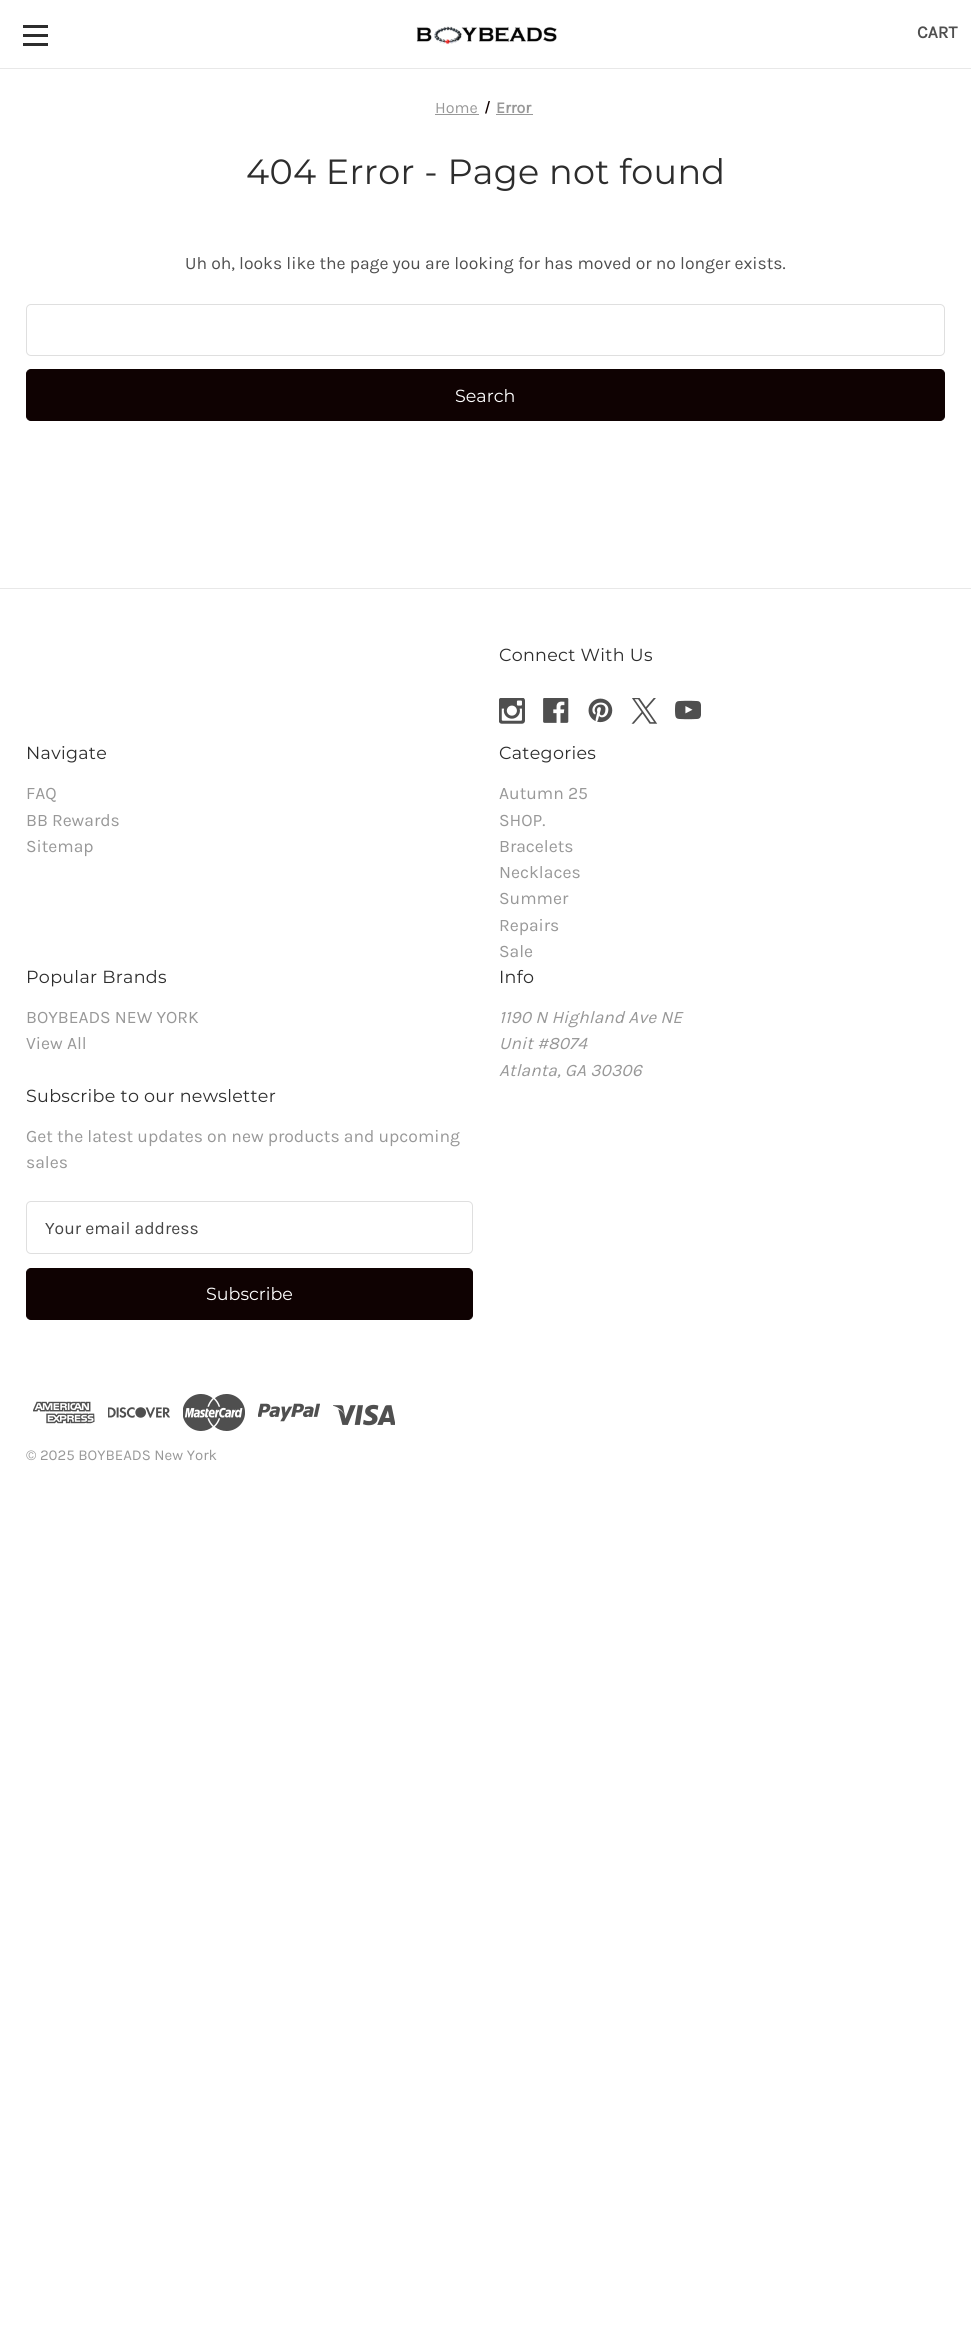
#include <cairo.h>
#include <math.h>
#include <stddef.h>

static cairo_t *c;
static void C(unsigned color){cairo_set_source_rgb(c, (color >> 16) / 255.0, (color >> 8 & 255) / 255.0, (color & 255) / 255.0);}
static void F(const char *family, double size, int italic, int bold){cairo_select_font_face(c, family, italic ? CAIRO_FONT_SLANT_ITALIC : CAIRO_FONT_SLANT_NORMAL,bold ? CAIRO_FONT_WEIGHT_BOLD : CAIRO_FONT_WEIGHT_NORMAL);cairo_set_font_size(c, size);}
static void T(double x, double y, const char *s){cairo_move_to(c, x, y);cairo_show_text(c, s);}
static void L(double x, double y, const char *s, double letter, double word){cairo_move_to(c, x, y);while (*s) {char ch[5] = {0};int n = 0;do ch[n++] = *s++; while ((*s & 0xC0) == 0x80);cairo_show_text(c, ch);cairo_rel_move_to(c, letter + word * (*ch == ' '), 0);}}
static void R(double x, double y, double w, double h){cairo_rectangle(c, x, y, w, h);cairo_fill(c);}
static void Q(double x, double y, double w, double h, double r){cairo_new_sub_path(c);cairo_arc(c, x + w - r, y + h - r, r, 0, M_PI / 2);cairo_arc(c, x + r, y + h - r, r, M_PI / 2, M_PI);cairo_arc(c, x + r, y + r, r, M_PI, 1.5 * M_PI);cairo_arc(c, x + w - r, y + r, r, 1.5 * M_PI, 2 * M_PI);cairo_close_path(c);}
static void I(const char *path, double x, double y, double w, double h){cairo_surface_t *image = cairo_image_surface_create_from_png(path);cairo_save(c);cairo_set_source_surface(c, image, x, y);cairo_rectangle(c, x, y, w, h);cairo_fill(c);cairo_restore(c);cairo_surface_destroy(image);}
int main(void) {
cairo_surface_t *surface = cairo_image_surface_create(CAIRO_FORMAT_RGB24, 971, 2340);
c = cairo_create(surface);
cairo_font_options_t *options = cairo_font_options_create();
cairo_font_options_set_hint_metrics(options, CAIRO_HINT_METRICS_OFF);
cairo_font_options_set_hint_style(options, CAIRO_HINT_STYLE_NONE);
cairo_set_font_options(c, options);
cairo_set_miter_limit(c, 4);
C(0xffffff);
cairo_paint(c);
C(0xe8e8e8);
R(0,68,971,1);
C(0x2d2d2d);
R(23,34,25,3);
R(23,25,25,3);
R(23,43,25,3);
I("1.png",416,26,141,19);
F("Karla",17.5,0,1);
C(0x4f4f4f);
T(917,38,"CART");
F("Karla",16,0,0);
C(0x989898);
T(435,113,"Home");
R(435,114,44,1);
C(0x0f0000);
cairo_new_path(c);
cairo_move_to(c,488.5,101);
cairo_line_to(c,490,101);
cairo_line_to(c,486.5,113.5);
cairo_line_to(c,485,113.5);
cairo_close_path(c);
cairo_fill(c);
F("Karla",16,0,1);
C(0x989898);
T(496,113,"Error");
R(496,114,37,1);
F("Montserrat Thin",35,0,0);
C(0x2d2d2d);
L(246,184,"404 Error - Page not found",.3,0);
F("Karla",17.5,0,0);
C(0x4f4f4f);
T(185,269,"Uh oh, looks like the page you are looking for has moved or no longer exists.");
Q(26.5,304.5,918,51,4.5);
C(0xdfdfdf);
cairo_set_line_width(c,1);
cairo_stroke(c);
C(0x0f0202);
Q(26.5,369.5,918,51,4.5);
cairo_fill_preserve(c);
cairo_stroke(c);
F("Montserrat Thin",17.5,0,0);
C(0xffffff);
T(455,402,"Search");
C(0xe8e8e8);
R(0,588,971,1);
C(0x2d2d2d);
L(499,661,"Connect With Us",.3,0);
I("2.png",499,698,26,26);
I("3.png",543,698,26,25);
I("4.png",588,698,25,25);
I("5.png",631,698,27,26);
I("6.png",675,700,26,20);
L(26,759,"Navigate",.3,0);
F("Karla",17.5,0,0);
C(0x989898);
T(26,799,"FAQ");
T(26,826,"BB Rewards");
T(26,852,"Sitemap");
F("Montserrat Thin",17.5,0,0);
C(0x2d2d2d);
L(499,759,"Categories",.3,0);
F("Karla",17.5,0,0);
C(0x989898);
T(499,799,"Autumn 25");
T(499,826,"SHOP.");
T(499,852,"Bracelets");
T(499,878,"Necklaces");
T(499,904,"Summer");
T(499,931,"Repairs");
T(499,957,"Sale");
F("Montserrat Thin",17.5,0,0);
C(0x2d2d2d);
L(26,983,"Popular Brands",.3,0);
F("Karla",17.5,0,0);
C(0x989898);
T(26,1023,"BOYBEADS NEW YORK");
T(26,1049,"View All");
F("Montserrat Thin",17.5,0,0);
C(0x2d2d2d);
L(499,983,"Info",.3,0);
F("Karla",17.5,1,0);
C(0x989898);
T(499,1023,"1190 N Highland Ave NE");
T(499,1049,"Unit #8074");
T(499,1076,"Atlanta, GA 30306");
F("Montserrat Thin",17.5,0,0);
C(0x2d2d2d);
L(26,1102,"Subscribe to our newsletter",.3,0);
F("Karla",17.5,0,0);
C(0x989898);
T(26,1142,"Get the latest updates on new products and upcoming");
T(26,1168,"sales");
Q(26.5,1201.5,446,52,4.5);
C(0xdfdfdf);
cairo_stroke(c);
C(0x454545);
T(45,1234,"Your email address");
C(0x0f0202);
Q(26.5,1268.5,446,51,4.5);
cairo_fill_preserve(c);
cairo_stroke(c);
F("Montserrat Thin",17.5,0,0);
C(0xffffff);
T(206,1300,"Subscribe");
I("7.png",33,1401,62,23);
I("8.png",108,1407,62,11);
I("9.png",183,1394,62,37);
I("10.png",258,1403,62,19);
I("11.png",333,1404,62,22);
F("Karla",15,0,0);
C(0x989898);
T(26,1460,"© 2025 BOYBEADS New York");
cairo_surface_write_to_png(surface, "o.png");
cairo_font_options_destroy(options);
cairo_destroy(c);
cairo_surface_destroy(surface);
return 0;
}
